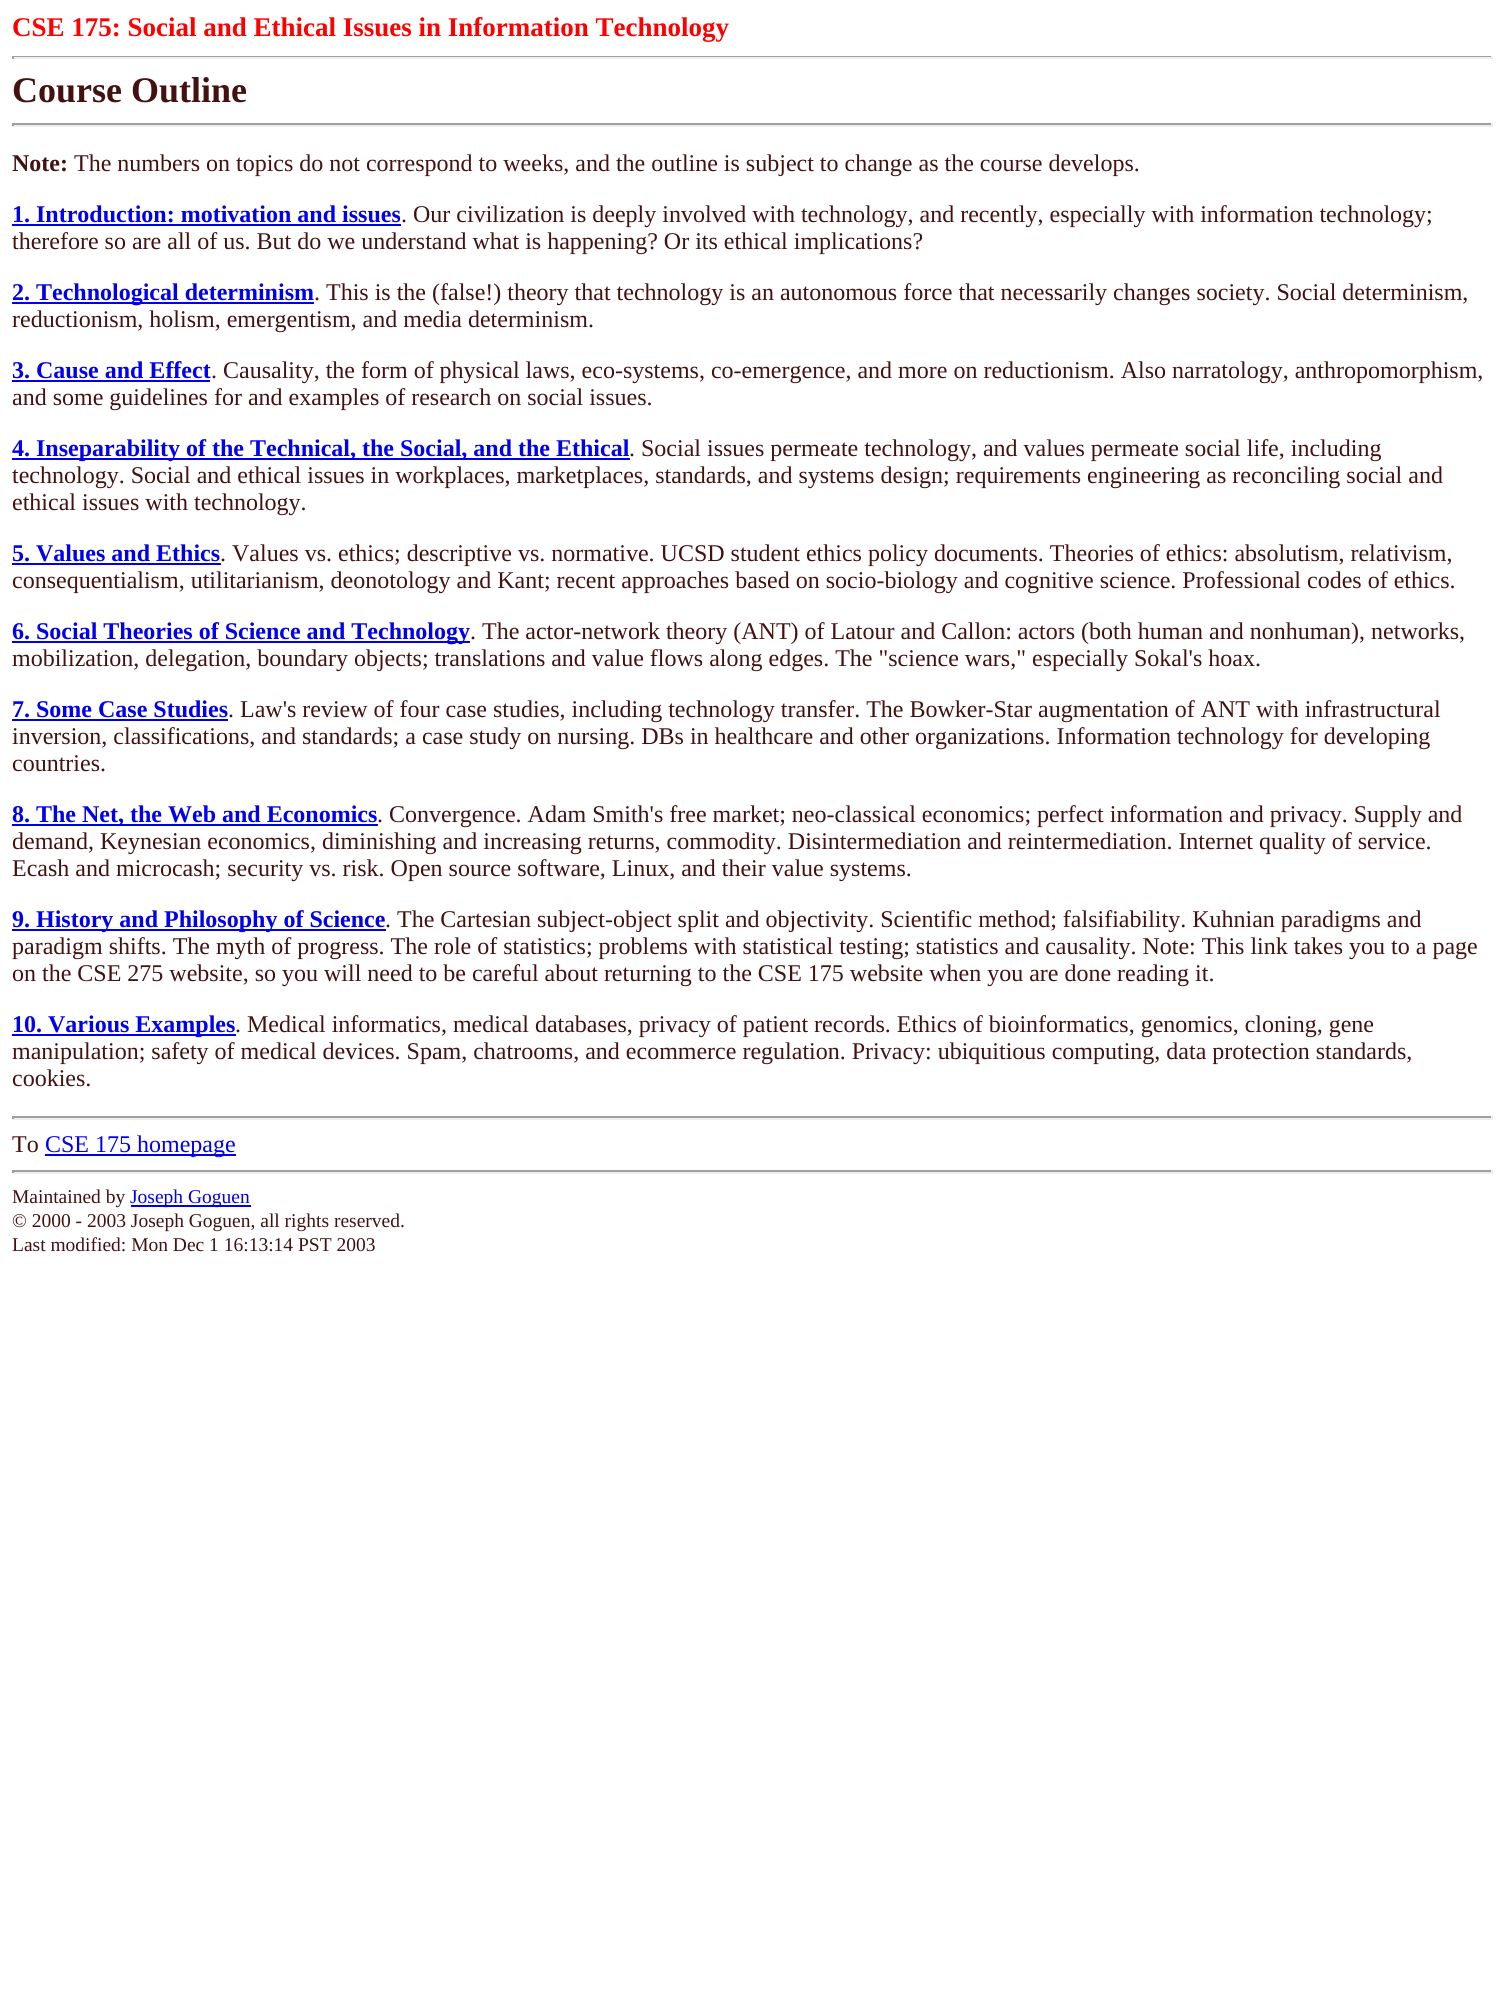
#include <cairo.h>
#include <math.h>
#include <stddef.h>

static cairo_t *c;
static void C(unsigned color){cairo_set_source_rgb(c, (color >> 16) / 255.0, (color >> 8 & 255) / 255.0, (color & 255) / 255.0);}
static void F(const char *family, double size, int italic, int bold){cairo_select_font_face(c, family, italic ? CAIRO_FONT_SLANT_ITALIC : CAIRO_FONT_SLANT_NORMAL,bold ? CAIRO_FONT_WEIGHT_BOLD : CAIRO_FONT_WEIGHT_NORMAL);cairo_set_font_size(c, size);}
static void T(double x, double y, const char *s){cairo_move_to(c, x, y);cairo_show_text(c, s);}
static void R(double x, double y, double w, double h){cairo_rectangle(c, x, y, w, h);cairo_fill(c);}
int main(void) {
cairo_surface_t *surface = cairo_image_surface_create(CAIRO_FORMAT_RGB24, 1504, 2000);
c = cairo_create(surface);
cairo_font_options_t *options = cairo_font_options_create();
cairo_font_options_set_hint_metrics(options, CAIRO_HINT_METRICS_OFF);
cairo_font_options_set_hint_style(options, CAIRO_HINT_STYLE_NONE);
cairo_set_font_options(c, options);
cairo_set_miter_limit(c, 4);
C(0xffffff);
cairo_paint(c);
F("Liberation Serif",27,0,1);
C(0xff0000);
T(12,36,"CSE 175: Social and Ethical Issues in Information Technology");
C(0x9f9f9f);
R(12,56,1481,1);
C(0xeeeeee);
R(1491,56,2,3);
R(12,57,1481,2);
C(0x9f9f9f);
R(12,56,2,3);
F("Liberation Serif",36,0,1);
C(0x441111);
T(12,102,"Course Outline");
C(0x9f9f9f);
R(12,123,1481,2);
C(0xeeeeee);
R(1491,123,2,3);
R(12,125,1481,2);
C(0x9f9f9f);
R(12,123,2,3);
F("Liberation Serif",24,0,1);
C(0x441111);
T(12,171,"Note:");
F("Liberation Serif",24,0,0);
T(74,171,"The numbers on topics do not correspond to weeks, and the outline is subject to change as the course develops.");
F("Liberation Serif",24,0,1);
C(0x0000ee);
T(12,222,"1. Introduction: motivation and issues");
R(12,224,389,2);
F("Liberation Serif",24,0,0);
C(0x441111);
T(401,222,". Our civilization is deeply involved with technology, and recently, especially with information technology;");
T(12,249,"therefore so are all of us. But do we understand what is happening? Or its ethical implications?");
C(0x0000ee);
R(12,302,302,2);
F("Liberation Serif",24,0,1);
T(12,300,"2. Technological determinism");
F("Liberation Serif",24,0,0);
C(0x441111);
T(314,300,". This is the (false!) theory that technology is an autonomous force that necessarily changes society. Social determinism,");
T(12,327,"reductionism, holism, emergentism, and media determinism.");
F("Liberation Serif",24,0,1);
C(0x0000ee);
T(12,378,"3. Cause and Effect");
R(12,380,198,2);
F("Liberation Serif",24,0,0);
C(0x441111);
T(211,378,". Causality, the form of physical laws, eco-systems, co-emergence, and more on reductionism. Also narratology, anthropomorphism,");
T(12,405,"and some guidelines for and examples of research on social issues.");
C(0x0000ee);
R(12,458,618,2);
F("Liberation Serif",24,0,1);
T(12,456,"4. Inseparability of the Technical, the Social, and the Ethical");
F("Liberation Serif",24,0,0);
C(0x441111);
T(629,456,". Social issues permeate technology, and values permeate social life, including");
T(12,483,"technology. Social and ethical issues in workplaces, marketplaces, standards, and systems design; requirements engineering as reconciling social and");
T(12,510,"ethical issues with technology.");
F("Liberation Serif",24,0,1);
C(0x0000ee);
T(12,561,"5. Values and Ethics");
R(12,563,209,2);
F("Liberation Serif",24,0,0);
C(0x441111);
T(220,561,". Values vs. ethics; descriptive vs. normative. UCSD student ethics policy documents. Theories of ethics: absolutism, relativism,");
T(12,588,"consequentialism, utilitarianism, deonotology and Kant; recent approaches based on socio-biology and cognitive science. Professional codes of ethics.");
C(0x0000ee);
R(12,641,458,2);
F("Liberation Serif",24,0,1);
T(12,639,"6. Social Theories of Science and Technology");
F("Liberation Serif",24,0,0);
C(0x441111);
T(470,639,". The actor-network theory (ANT) of Latour and Callon: actors (both human and nonhuman), networks,");
T(12,666,"mobilization, delegation, boundary objects; translations and value flows along edges. The \"science wars,\" especially Sokal's hoax.");
F("Liberation Serif",24,0,1);
C(0x0000ee);
T(12,717,"7. Some Case Studies");
R(12,719,216,2);
F("Liberation Serif",24,0,0);
C(0x441111);
T(228,717,". Law's review of four case studies, including technology transfer. The Bowker-Star augmentation of ANT with infrastructural");
T(12,744,"inversion, classifications, and standards; a case study on nursing. DBs in healthcare and other organizations. Information technology for developing");
T(12,771,"countries.");
C(0x0000ee);
R(12,824,366,2);
F("Liberation Serif",24,0,1);
T(12,822,"8. The Net, the Web and Economics");
F("Liberation Serif",24,0,0);
C(0x441111);
T(377,822,". Convergence. Adam Smith's free market; neo-classical economics; perfect information and privacy. Supply and");
T(12,849,"demand, Keynesian economics, diminishing and increasing returns, commodity. Disintermediation and reintermediation. Internet quality of service.");
T(12,876,"Ecash and microcash; security vs. risk. Open source software, Linux, and their value systems.");
C(0x0000ee);
R(12,929,374,2);
F("Liberation Serif",24,0,1);
T(12,927,"9. History and Philosophy of Science");
F("Liberation Serif",24,0,0);
C(0x441111);
T(385,927,". The Cartesian subject-object split and objectivity. Scientific method; falsifiability. Kuhnian paradigms and");
T(12,954,"paradigm shifts. The myth of progress. The role of statistics; problems with statistical testing; statistics and causality. Note: This link takes you to a page");
T(12,981,"on the CSE 275 website, so you will need to be careful about returning to the CSE 175 website when you are done reading it.");
C(0x0000ee);
R(12,1034,224,2);
F("Liberation Serif",24,0,1);
T(12,1032,"10. Various Examples");
F("Liberation Serif",24,0,0);
C(0x441111);
T(235,1032,". Medical informatics, medical databases, privacy of patient records. Ethics of bioinformatics, genomics, cloning, gene");
T(12,1059,"manipulation; safety of medical devices. Spam, chatrooms, and ecommerce regulation. Privacy: ubiquitious computing, data protection standards,");
T(12,1086,"cookies.");
C(0x9f9f9f);
R(12,1116,1481,2);
C(0xeeeeee);
R(1491,1116,2,3);
R(12,1118,1481,2);
C(0x9f9f9f);
R(12,1116,2,3);
C(0x441111);
T(12,1152,"To");
C(0x0000ee);
R(45,1154,191,2);
T(45,1152,"CSE 175 homepage");
C(0x9f9f9f);
R(12,1170,1481,2);
C(0xeeeeee);
R(1491,1170,2,3);
R(12,1172,1481,2);
C(0x9f9f9f);
R(12,1170,2,3);
F("Liberation Serif",19.5,0,0);
C(0x441111);
T(12,1203,"Maintained by");
C(0x0000ee);
R(131,1205,120,2);
T(130,1203,"Joseph Goguen");
C(0x441111);
T(12,1227,"© 2000 - 2003 Joseph Goguen, all rights reserved.");
T(12,1251,"Last modified: Mon Dec 1 16:13:14 PST 2003");
cairo_surface_write_to_png(surface, "o.png");
cairo_font_options_destroy(options);
cairo_destroy(c);
cairo_surface_destroy(surface);
return 0;
}
